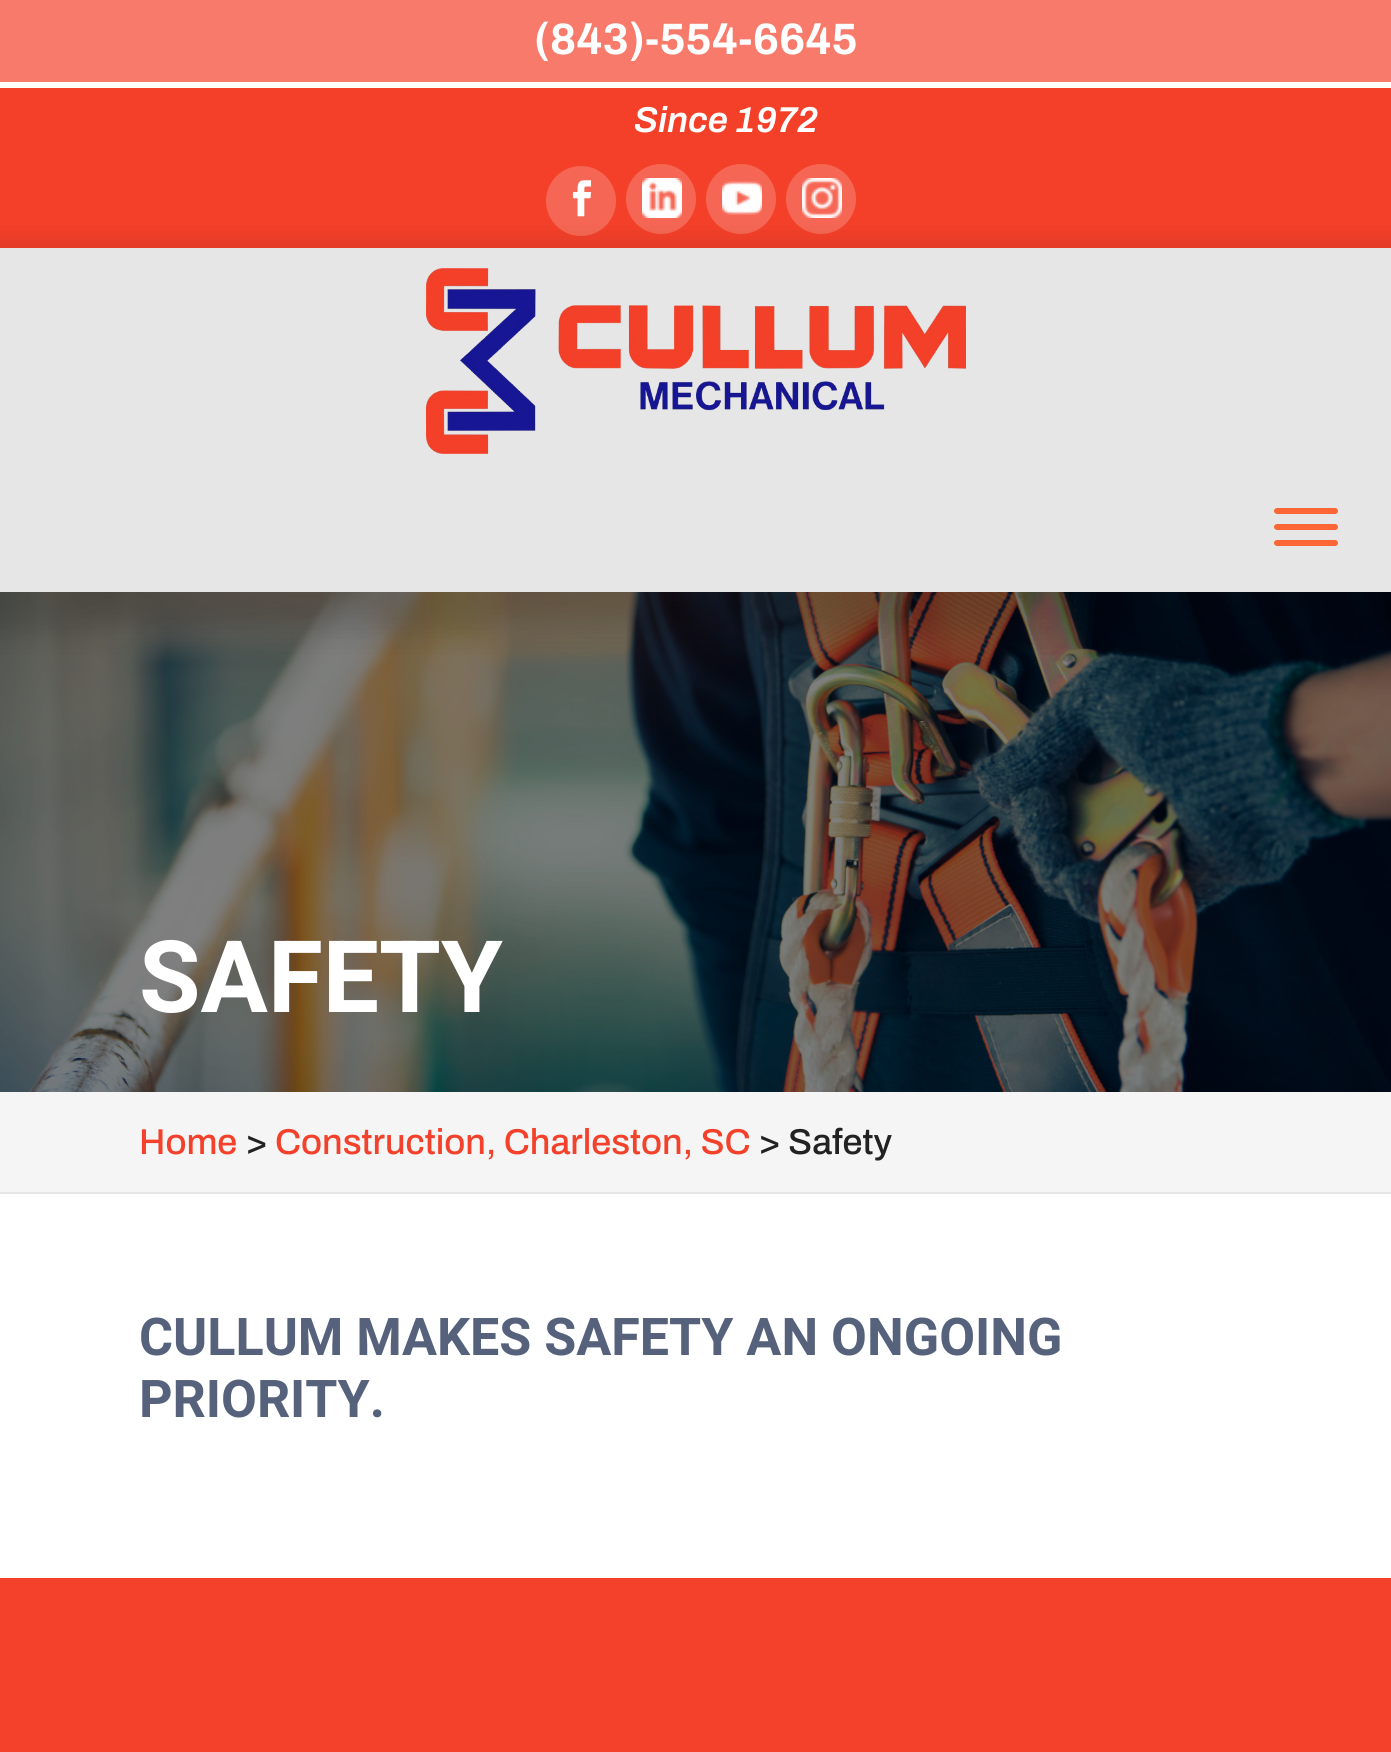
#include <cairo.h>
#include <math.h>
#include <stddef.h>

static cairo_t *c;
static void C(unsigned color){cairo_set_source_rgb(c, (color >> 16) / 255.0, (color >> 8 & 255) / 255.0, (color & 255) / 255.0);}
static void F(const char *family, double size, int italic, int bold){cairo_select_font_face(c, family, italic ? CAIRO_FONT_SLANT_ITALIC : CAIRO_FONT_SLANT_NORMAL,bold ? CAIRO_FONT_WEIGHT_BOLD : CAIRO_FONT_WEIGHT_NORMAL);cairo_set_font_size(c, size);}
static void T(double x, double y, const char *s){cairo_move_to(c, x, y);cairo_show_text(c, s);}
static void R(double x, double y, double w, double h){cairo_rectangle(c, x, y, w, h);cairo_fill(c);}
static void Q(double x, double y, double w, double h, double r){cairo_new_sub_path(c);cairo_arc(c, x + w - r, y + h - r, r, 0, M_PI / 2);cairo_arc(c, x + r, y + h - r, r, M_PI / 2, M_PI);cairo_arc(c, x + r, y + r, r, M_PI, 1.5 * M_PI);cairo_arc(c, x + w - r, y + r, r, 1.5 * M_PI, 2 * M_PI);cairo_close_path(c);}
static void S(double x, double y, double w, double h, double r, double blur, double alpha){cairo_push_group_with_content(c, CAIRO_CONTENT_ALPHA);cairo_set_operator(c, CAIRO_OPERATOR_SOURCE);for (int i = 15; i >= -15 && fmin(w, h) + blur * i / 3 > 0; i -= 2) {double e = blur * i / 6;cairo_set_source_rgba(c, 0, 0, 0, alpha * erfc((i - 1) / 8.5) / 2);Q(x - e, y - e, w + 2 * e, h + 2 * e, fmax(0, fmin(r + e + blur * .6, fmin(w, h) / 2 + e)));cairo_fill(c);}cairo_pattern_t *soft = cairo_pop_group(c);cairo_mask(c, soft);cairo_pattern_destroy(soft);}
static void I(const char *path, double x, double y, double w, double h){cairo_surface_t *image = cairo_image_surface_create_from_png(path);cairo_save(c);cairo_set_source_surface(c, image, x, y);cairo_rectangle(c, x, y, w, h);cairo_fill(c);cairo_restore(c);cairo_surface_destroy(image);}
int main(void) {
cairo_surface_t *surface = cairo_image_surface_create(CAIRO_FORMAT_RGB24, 1391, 1752);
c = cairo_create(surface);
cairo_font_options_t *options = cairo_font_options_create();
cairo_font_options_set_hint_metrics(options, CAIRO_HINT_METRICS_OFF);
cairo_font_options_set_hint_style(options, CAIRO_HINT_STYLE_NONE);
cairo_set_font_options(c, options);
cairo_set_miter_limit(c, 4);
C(0xffffff);
cairo_paint(c);
C(0xf77a6b);
R(0,0,1391,82);
F("Archivo",44,0,1);
C(0xffffff);
T(534,54,"(843)-554-6645");
C(0xf3412b);
R(0,1578,1391,174);
I("1.png",0,592,1391,500);
F("Heebo",100,0,1);
C(0xffffff);
T(139,1012,"SAFETY");
C(0xe6e6e6);
R(0,1192,1391,2);
C(0xf5f5f5);
R(0,1092,1391,100);
F("Archivo Medium",36,0,0);
C(0xf3412b);
T(139,1154,"Home");
C(0x222222);
T(245,1154,">");
C(0xf3412b);
T(275,1154,"Construction, Charleston, SC");
C(0x222222);
T(758,1154,"> Safety");
F("Heebo",52,0,1);
C(0x56617c);
T(139,1355,"CULLUM MAKES SAFETY AN ONGOING");
T(139,1417,"PRIORITY.");
C(0xf44029);
R(0,88,1391,160);
F("Archivo SemiBold",36,1,0);
C(0xffffff);
T(634,132,"Since 1972");
C(0xf66654);
cairo_new_path(c);
cairo_arc(c,581,201,35,0,2 * M_PI);
cairo_fill(c);
I("2.png",573,180,19,37);
cairo_arc(c,661,199,35,0,2 * M_PI);
cairo_fill(c);
I("3.png",642,178,40,40);
cairo_arc(c,741,199,35,0,2 * M_PI);
cairo_fill(c);
I("4.png",722,181,40,34);
cairo_arc(c,821,199,35,0,2 * M_PI);
cairo_fill(c);
I("5.png",802,178,40,40);
C(0x000000);
S(-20,248,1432,384,0,15,.15);
C(0xe6e6e6);
R(0,248,1391,344);
I("6.png",426,268,540,186);
C(0xfe6735);
Q(1274,508,64,6,3);
cairo_fill(c);
Q(1274,524,64,6,3);
cairo_fill(c);
Q(1274,540,64,6,3);
cairo_fill(c);
cairo_surface_write_to_png(surface, "o.png");
cairo_font_options_destroy(options);
cairo_destroy(c);
cairo_surface_destroy(surface);
return 0;
}
